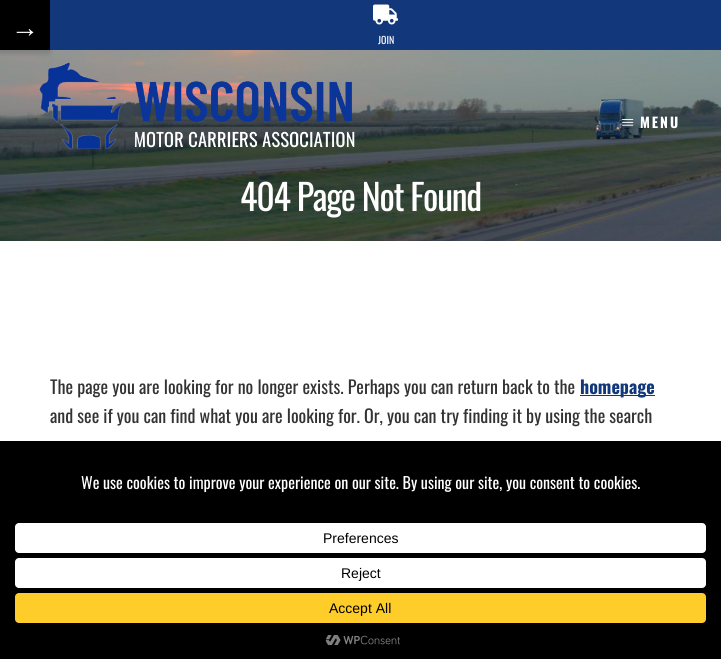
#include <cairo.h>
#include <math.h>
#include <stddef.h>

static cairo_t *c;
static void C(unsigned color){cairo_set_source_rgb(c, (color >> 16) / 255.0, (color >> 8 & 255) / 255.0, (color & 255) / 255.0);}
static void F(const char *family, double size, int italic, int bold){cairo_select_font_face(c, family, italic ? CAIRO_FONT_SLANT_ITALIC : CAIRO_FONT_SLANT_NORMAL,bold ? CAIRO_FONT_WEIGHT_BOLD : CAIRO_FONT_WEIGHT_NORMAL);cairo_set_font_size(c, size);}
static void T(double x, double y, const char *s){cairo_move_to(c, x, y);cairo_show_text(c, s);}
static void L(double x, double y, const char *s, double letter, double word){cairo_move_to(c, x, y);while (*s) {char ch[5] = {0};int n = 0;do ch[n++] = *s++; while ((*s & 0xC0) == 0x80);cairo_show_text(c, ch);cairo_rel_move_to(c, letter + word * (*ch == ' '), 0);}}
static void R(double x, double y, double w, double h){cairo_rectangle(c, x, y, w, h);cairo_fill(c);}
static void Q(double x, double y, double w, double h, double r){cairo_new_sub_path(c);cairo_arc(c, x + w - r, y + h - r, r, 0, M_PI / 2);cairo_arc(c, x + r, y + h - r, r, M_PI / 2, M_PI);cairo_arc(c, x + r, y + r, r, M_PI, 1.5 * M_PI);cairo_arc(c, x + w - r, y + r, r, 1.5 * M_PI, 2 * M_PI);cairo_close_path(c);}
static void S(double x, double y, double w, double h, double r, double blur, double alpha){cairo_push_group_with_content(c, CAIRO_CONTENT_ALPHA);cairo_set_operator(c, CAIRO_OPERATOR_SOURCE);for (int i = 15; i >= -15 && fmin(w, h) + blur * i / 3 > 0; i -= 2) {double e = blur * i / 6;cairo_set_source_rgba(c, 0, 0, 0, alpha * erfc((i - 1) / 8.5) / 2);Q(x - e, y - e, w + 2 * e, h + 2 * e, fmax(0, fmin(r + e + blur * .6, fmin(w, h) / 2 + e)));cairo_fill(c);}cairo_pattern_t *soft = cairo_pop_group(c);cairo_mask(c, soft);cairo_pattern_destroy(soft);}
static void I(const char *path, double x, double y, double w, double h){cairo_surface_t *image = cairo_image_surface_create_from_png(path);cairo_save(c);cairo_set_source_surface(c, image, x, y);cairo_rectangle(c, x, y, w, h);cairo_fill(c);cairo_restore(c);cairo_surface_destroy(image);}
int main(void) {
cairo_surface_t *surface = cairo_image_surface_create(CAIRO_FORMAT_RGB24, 721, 659);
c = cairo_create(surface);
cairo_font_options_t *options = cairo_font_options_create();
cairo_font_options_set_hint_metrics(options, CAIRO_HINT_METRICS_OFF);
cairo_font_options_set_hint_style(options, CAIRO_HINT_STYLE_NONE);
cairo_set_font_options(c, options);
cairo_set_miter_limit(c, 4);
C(0xffffff);
cairo_paint(c);
I("2.png",0,50,721,191);
I("3.png",39,62,316,87);
C(0x000000);
S(0,3,50,50,0,3,.16);
C(0x000000);
R(0,0,50,50);
F("Liberation Sans",28,0,0);
C(0xffffff);
T(11,37,"→");
C(0x12377a);
R(50,0,671,50);
I("1.png",373,4,25,21);
F("Oswald",10,0,0);
C(0xffffff);
T(378,44,"JOIN");
I("4.png",622,119,12,7);
F("Oswald",14,0,1);
L(640,128,"MENU",2,0);
F("Oswald",36,0,0);
L(240,211,"404 Page Not Found",-1.25,0);
F("Oswald",18,0,0);
C(0x333333);
T(50,394,"The page you are looking for no longer exists. Perhaps you can return back to the");
C(0x12377a);
R(580,395,75,1);
F("Oswald",18,0,1);
T(580,394,"homepage");
F("Oswald",18,0,0);
C(0x333333);
T(50,423,"and see if you can find what you are looking for. Or, you can try finding it by using the search");
C(0x000000);
R(0,441,721,218);
F("Oswald",16,0,0);
C(0xffffff);
T(81,489,"We use cookies to improve your experience on our site. By using our site, you consent to cookies.");
Q(15,523,691,30,4);
cairo_fill(c);
F("Liberation Sans",14,0,0);
C(0x000000);
T(323,543,"Preferences");
C(0xffffff);
Q(15,558,691,30,4);
cairo_fill(c);
C(0x000000);
T(341,578,"Reject");
C(0xffcd2a);
Q(15,593,691,30,4);
cairo_fill(c);
C(0x000000);
T(329,613,"Accept All");
I("5.png",325,635,75,11);
cairo_surface_write_to_png(surface, "o.png");
cairo_font_options_destroy(options);
cairo_destroy(c);
cairo_surface_destroy(surface);
return 0;
}
